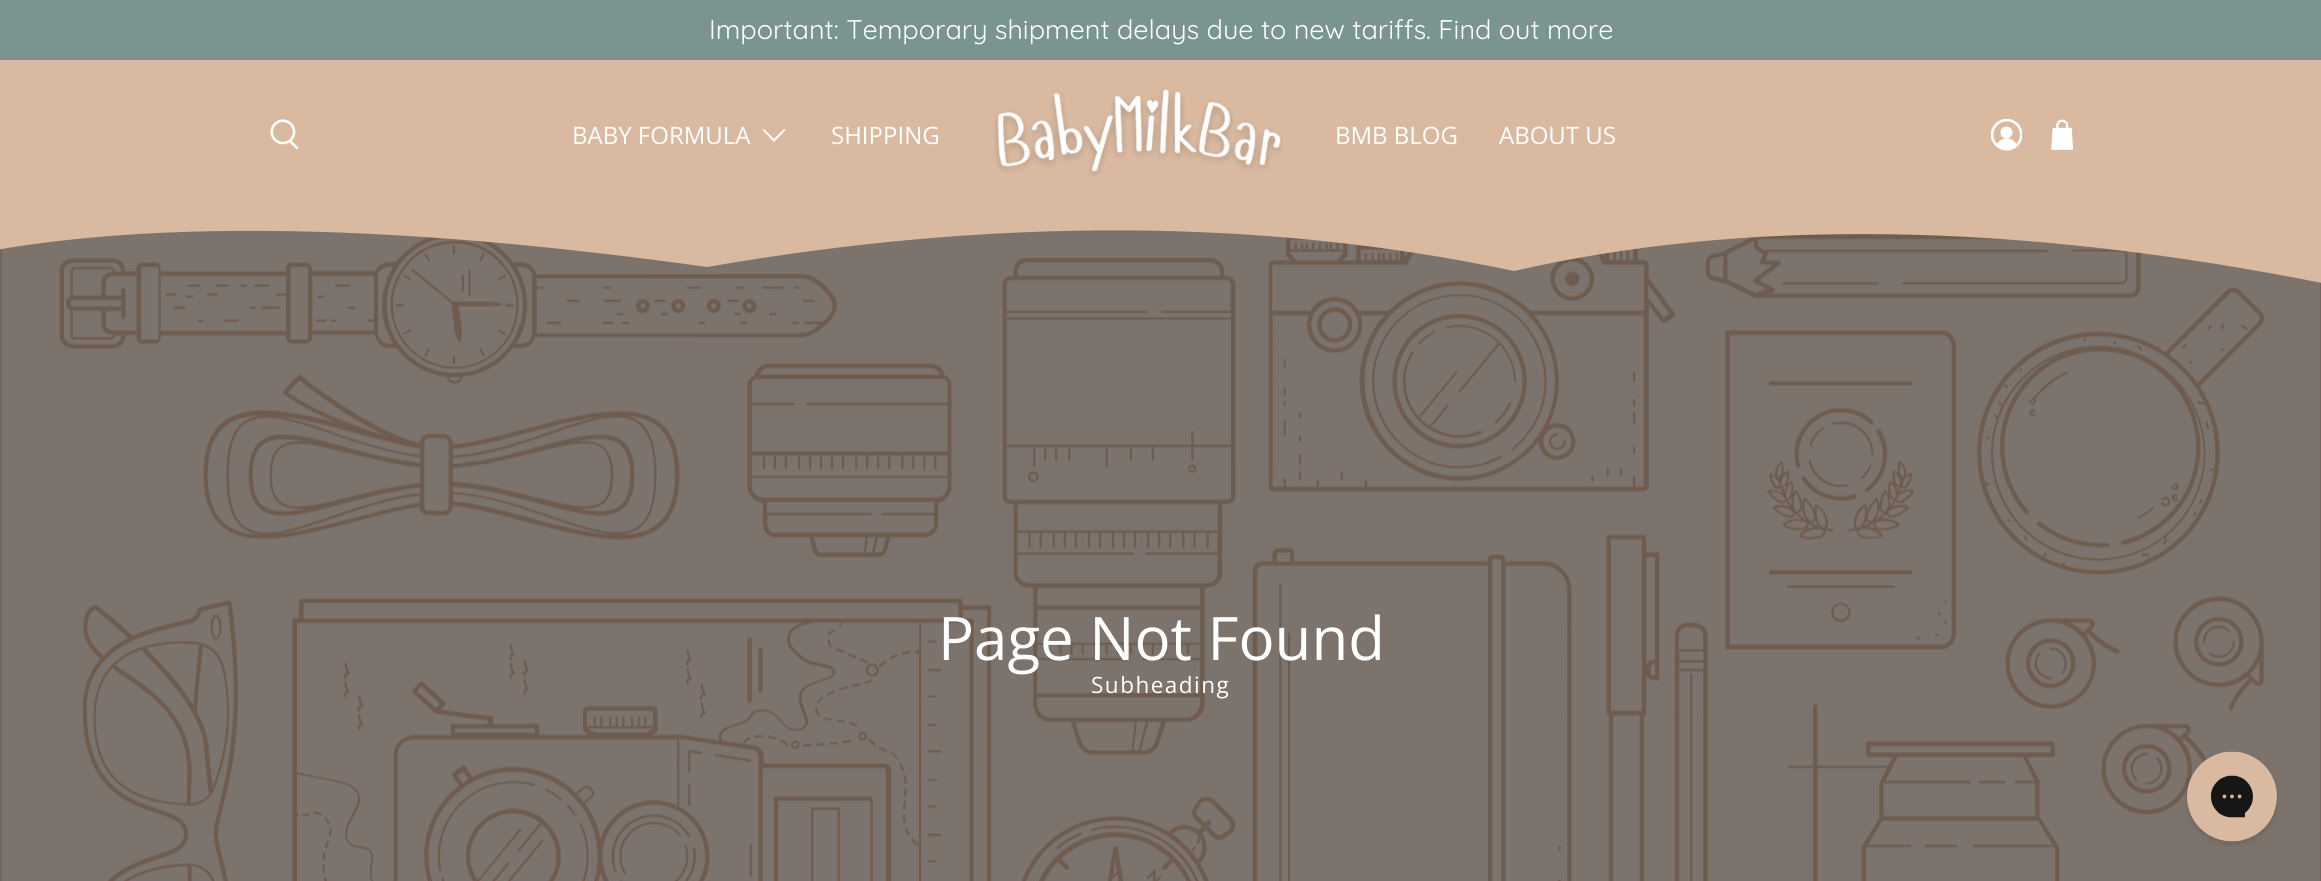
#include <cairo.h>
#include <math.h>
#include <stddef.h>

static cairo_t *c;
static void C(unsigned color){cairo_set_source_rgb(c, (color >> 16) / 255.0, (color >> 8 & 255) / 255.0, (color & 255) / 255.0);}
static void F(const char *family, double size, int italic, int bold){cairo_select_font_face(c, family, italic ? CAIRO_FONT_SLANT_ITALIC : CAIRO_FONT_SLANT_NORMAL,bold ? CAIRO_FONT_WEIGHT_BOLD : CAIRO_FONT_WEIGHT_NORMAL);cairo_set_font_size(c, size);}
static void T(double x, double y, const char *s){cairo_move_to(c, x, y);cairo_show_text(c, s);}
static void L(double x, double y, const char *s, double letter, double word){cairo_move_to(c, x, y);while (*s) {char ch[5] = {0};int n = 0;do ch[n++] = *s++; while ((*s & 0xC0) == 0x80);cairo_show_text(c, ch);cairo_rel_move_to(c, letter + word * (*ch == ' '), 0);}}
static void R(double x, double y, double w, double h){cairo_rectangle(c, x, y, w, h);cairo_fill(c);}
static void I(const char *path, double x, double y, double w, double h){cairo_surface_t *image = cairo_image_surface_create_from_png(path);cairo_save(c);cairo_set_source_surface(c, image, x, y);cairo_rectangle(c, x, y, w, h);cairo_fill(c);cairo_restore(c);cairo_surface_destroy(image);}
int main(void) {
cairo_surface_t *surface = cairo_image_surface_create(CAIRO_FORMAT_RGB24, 2321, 881);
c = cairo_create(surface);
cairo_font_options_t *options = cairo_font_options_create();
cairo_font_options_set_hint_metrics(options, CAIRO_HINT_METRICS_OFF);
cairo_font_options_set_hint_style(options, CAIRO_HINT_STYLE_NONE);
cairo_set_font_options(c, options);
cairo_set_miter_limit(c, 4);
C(0x7c736c);
cairo_paint(c);
cairo_rectangle(c,1,211,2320,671);
C(0x74665c);
cairo_stroke(c);
I("5.png",59,234,2206,647);
C(0xd9b9a0);
cairo_new_path(c);
cairo_move_to(c,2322,283);
cairo_curve_to(c,2015,222,1745,218,1514,271);
cairo_curve_to(c,1264,218,994,217,707,267);
cairo_curve_to(c,349,217,80,219,-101,272);
cairo_line_to(c,-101,-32);
cairo_line_to(c,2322,-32);
cairo_close_path(c);
cairo_fill(c);
C(0x7a9590);
R(0,0,2321,60);
F("Quicksand",27,0,0);
C(0xffffff);
T(709,39,"Important: Temporary shipment delays due to new tariffs. Find out more");
I("1.png",270,119,29,31);
F("Open Sans",24,0,0);
T(572,144,"BABY FORMULA");
cairo_new_path(c);
cairo_move_to(c,774,142);
cairo_line_to(c,762.5,130);
cairo_line_to(c,764,129);
cairo_line_to(c,774,139);
cairo_line_to(c,784,129);
cairo_line_to(c,785.5,130);
cairo_close_path(c);
cairo_fill(c);
T(831,144,"SHIPPING");
I("2.png",994,89,289,87);
T(1335,144,"BMB BLOG");
T(1499,144,"ABOUT US");
I("3.png",1991,119,31,32);
I("4.png",2051,119,23,31);
F("Open Sans",60,0,0);
T(938,660,"Page Not Found");
F("Open Sans",22.5,0,0);
L(1091,693,"Subheading",1.5,0);
I("6.png",2185,751,94,96);
cairo_surface_write_to_png(surface, "o.png");
cairo_font_options_destroy(options);
cairo_destroy(c);
cairo_surface_destroy(surface);
return 0;
}
